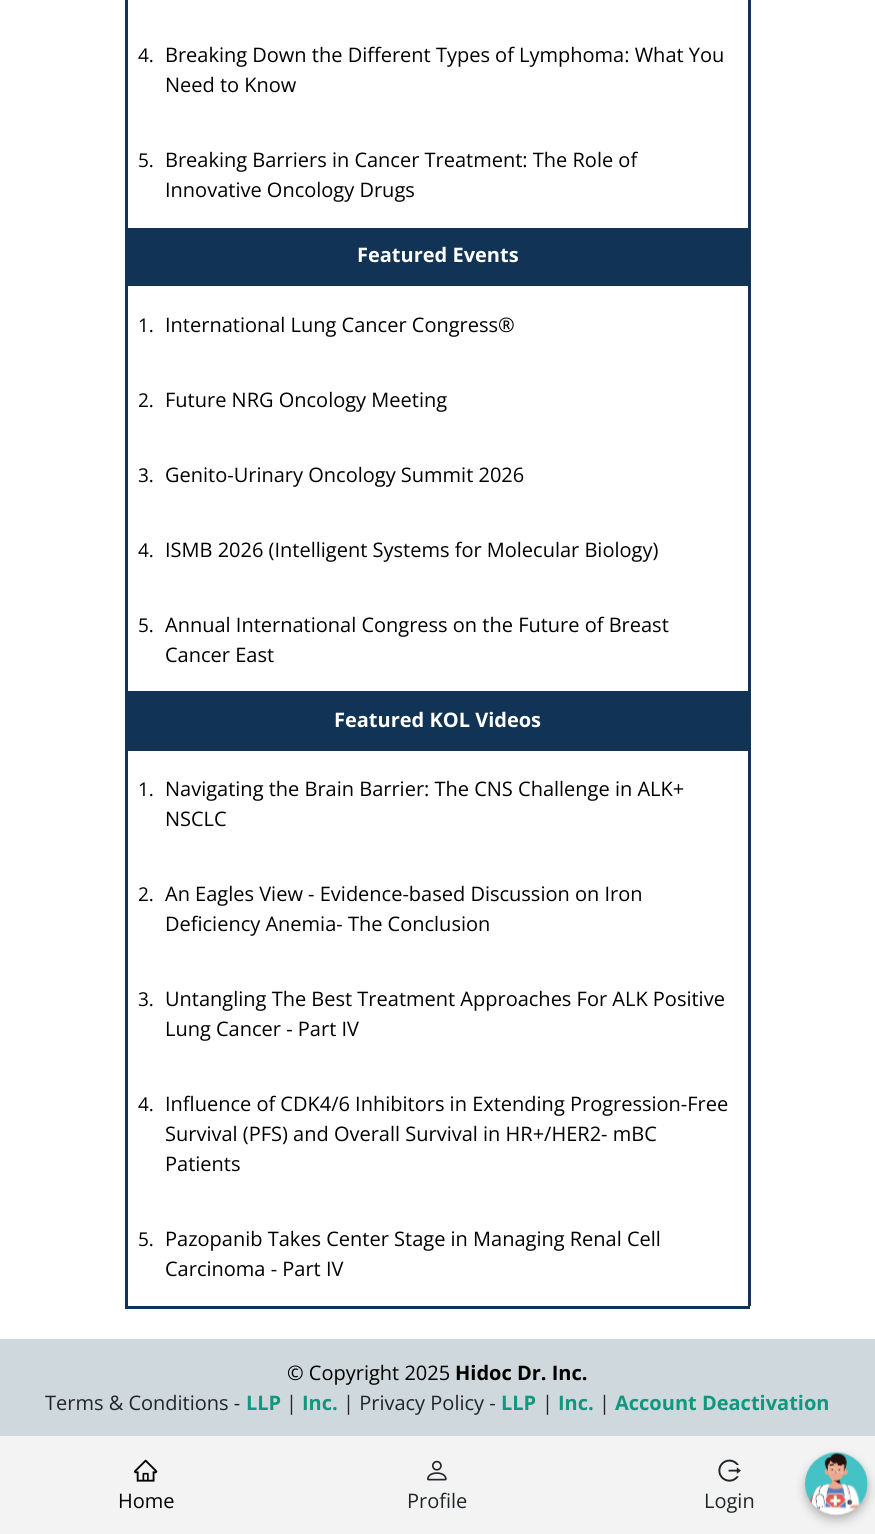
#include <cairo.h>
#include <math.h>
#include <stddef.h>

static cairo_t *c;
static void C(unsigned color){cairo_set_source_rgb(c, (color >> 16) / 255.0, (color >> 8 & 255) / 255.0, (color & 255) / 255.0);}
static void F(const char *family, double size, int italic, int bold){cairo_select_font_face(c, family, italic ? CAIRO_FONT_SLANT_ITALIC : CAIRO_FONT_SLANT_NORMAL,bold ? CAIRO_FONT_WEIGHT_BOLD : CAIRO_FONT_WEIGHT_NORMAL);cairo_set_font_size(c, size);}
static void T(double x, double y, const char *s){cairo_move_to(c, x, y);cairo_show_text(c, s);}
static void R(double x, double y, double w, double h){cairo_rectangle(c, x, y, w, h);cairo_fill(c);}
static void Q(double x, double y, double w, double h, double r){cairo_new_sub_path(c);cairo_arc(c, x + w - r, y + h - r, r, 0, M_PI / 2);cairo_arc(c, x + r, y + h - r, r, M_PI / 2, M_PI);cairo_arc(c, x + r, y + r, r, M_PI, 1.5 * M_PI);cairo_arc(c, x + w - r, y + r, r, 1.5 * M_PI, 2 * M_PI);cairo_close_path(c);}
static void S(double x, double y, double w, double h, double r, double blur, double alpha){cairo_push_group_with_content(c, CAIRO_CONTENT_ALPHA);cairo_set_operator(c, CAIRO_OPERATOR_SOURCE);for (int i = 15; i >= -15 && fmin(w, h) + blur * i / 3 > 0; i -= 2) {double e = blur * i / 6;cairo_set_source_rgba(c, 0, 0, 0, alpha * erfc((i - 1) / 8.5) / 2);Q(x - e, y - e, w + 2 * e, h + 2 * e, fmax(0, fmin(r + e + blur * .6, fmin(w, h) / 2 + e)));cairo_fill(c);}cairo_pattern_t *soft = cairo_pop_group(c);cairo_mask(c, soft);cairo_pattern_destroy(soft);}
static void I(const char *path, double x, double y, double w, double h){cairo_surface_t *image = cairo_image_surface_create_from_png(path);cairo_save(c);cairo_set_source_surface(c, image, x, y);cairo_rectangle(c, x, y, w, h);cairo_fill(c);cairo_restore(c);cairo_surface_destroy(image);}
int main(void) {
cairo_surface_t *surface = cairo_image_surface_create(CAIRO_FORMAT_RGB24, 875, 1534);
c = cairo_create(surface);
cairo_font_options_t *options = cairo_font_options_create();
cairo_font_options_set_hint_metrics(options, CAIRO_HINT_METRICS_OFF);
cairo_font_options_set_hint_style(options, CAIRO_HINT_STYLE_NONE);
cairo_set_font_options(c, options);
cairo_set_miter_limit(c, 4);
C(0xffffff);
cairo_paint(c);
C(0x103356);
R(125,1306,625,3);
R(125,0,3,1309);
F("Open Sans",19,0,0);
C(0x000000);
T(138,62,"4.");
F("Open Sans",20,0,0);
T(165,62,"Breaking Down the Different Types of Lymphoma: What You");
T(165,92,"Need to Know");
C(0x103356);
R(748,0,3,228);
F("Open Sans",19,0,0);
C(0x000000);
T(138,167,"5.");
F("Open Sans",20,0,0);
T(165,167,"Breaking Barriers in Cancer Treatment: The Role of");
T(165,197,"Innovative Oncology Drugs");
C(0x103356);
R(128,228,623,58);
F("Open Sans",20,0,1);
C(0xffffff);
T(357,262,"Featured Events");
C(0x103356);
R(748,286,3,405);
F("Open Sans",19,0,0);
C(0x000000);
T(138,332,"1.");
F("Open Sans",20,0,0);
T(165,332,"International Lung Cancer Congress®");
F("Open Sans",19,0,0);
T(138,407,"2.");
F("Open Sans",20,0,0);
T(165,407,"Future NRG Oncology Meeting");
F("Open Sans",19,0,0);
T(138,482,"3.");
F("Open Sans",20,0,0);
T(165,482,"Genito-Urinary Oncology Summit 2026");
F("Open Sans",19,0,0);
T(138,557,"4.");
F("Open Sans",20,0,0);
T(165,557,"ISMB 2026 (Intelligent Systems for Molecular Biology)");
F("Open Sans",19,0,0);
T(138,632,"5.");
F("Open Sans",20,0,0);
T(165,632,"Annual International Congress on the Future of Breast");
T(165,662,"Cancer East");
C(0x103356);
R(128,691,623,60);
F("Open Sans",20,0,1);
C(0xffffff);
T(334,727,"Featured KOL Videos");
C(0x103356);
R(748,751,3,555);
F("Open Sans",19,0,0);
C(0x000000);
T(138,796,"1.");
F("Open Sans",20,0,0);
T(165,796,"Navigating the Brain Barrier: The CNS Challenge in ALK+");
T(165,826,"NSCLC");
F("Open Sans",19,0,0);
T(138,901,"2.");
F("Open Sans",20,0,0);
T(165,901,"An Eagles View - Evidence-based Discussion on Iron");
T(165,931,"Deficiency Anemia- The Conclusion");
F("Open Sans",19,0,0);
T(138,1006,"3.");
F("Open Sans",20,0,0);
T(165,1006,"Untangling The Best Treatment Approaches For ALK Positive");
T(165,1036,"Lung Cancer - Part IV");
F("Open Sans",19,0,0);
T(138,1111,"4.");
F("Open Sans",20,0,0);
T(165,1111,"Influence of CDK4/6 Inhibitors in Extending Progression-Free");
T(165,1141,"Survival (PFS) and Overall Survival in HR+/HER2- mBC");
T(165,1171,"Patients");
F("Open Sans",19,0,0);
T(138,1246,"5.");
F("Open Sans",20,0,0);
T(165,1246,"Pazopanib Takes Center Stage in Managing Renal Cell");
T(165,1276,"Carcinoma - Part IV");
C(0xcfd8dc);
R(0,1339,875,97);
C(0x000000);
T(287,1380,"© Copyright 2025");
F("Open Sans",20,0,1);
T(455,1380,"Hidoc Dr. Inc.");
F("Open Sans",20,0,0);
C(0x212529);
T(45,1410,"Terms & Conditions -");
F("Open Sans",20,0,1);
C(0x11977f);
T(246,1410,"LLP");
F("Open Sans",20,0,0);
C(0x212529);
T(286,1410,"|");
F("Open Sans",20,0,1);
C(0x11977f);
T(302,1410,"Inc.");
F("Open Sans",20,0,0);
C(0x212529);
T(343,1410,"| Privacy Policy -");
F("Open Sans",20,0,1);
C(0x11977f);
T(501,1410,"LLP");
F("Open Sans",20,0,0);
C(0x212529);
T(542,1410,"|");
F("Open Sans",20,0,1);
C(0x11977f);
T(558,1410,"Inc.");
F("Open Sans",20,0,0);
C(0x212529);
T(599,1410,"|");
F("Open Sans",20,0,1);
C(0x11977f);
T(615,1410,"Account Deactivation");
C(0xf3f3f3);
R(0,1436,875,98);
I("1.png",134,1459,24,23);
F("Open Sans",20,0,0);
C(0x000000);
T(118,1508,"Home");
I("2.png",427,1460,20,21);
C(0x212529);
T(407,1508,"Profile");
I("3.png",718,1459,23,23);
T(704,1508,"Login");
C(0x000000);
S(805,1454,63,62,31,2,.05);
C(0x323232);
S(805,1458,63,62,31,5,.3);
I("4.png",805,1452,63,64);
cairo_surface_write_to_png(surface, "o.png");
cairo_font_options_destroy(options);
cairo_destroy(c);
cairo_surface_destroy(surface);
return 0;
}
